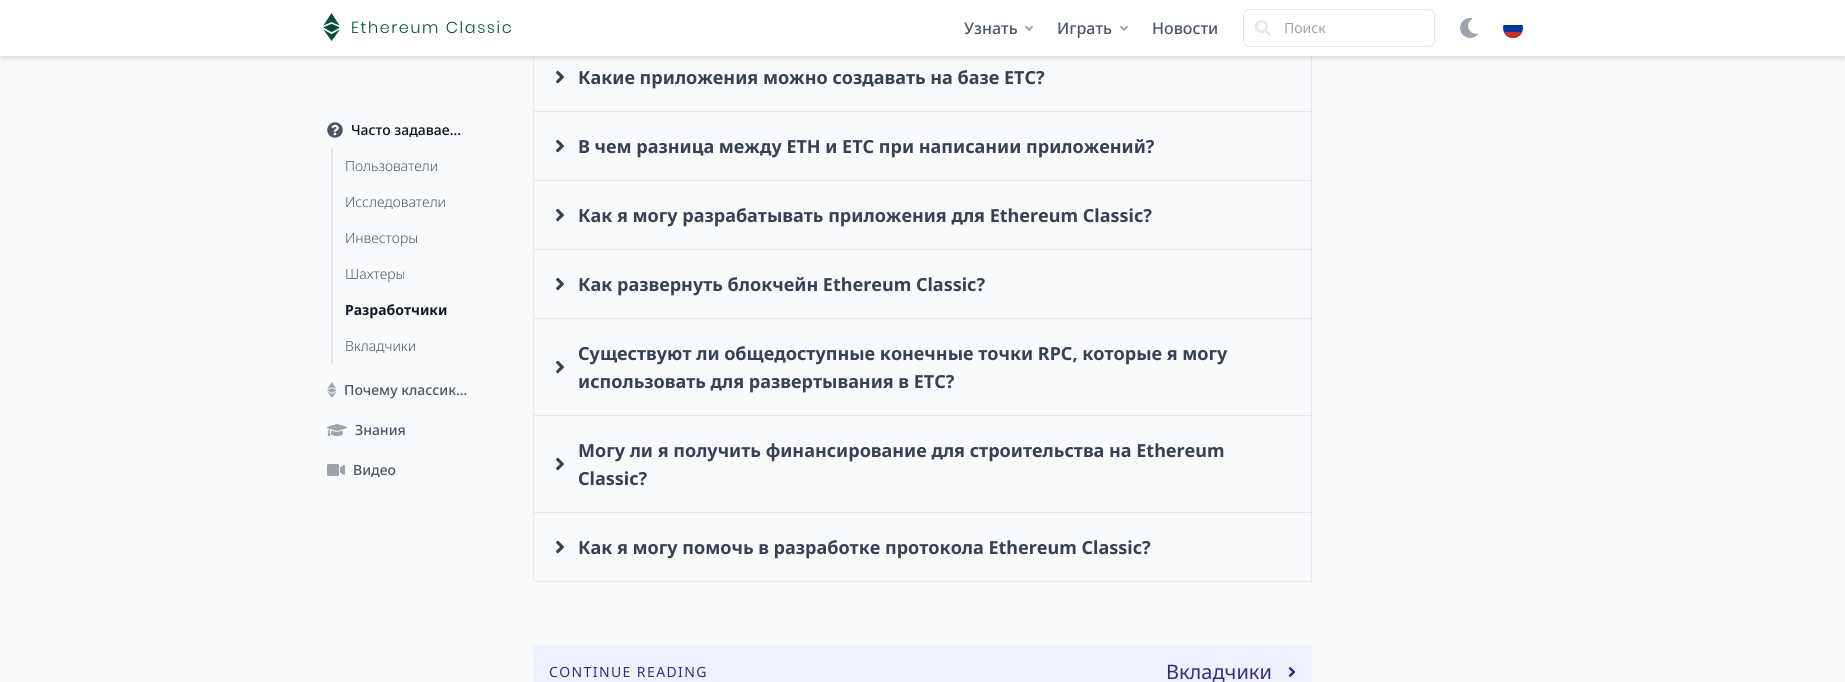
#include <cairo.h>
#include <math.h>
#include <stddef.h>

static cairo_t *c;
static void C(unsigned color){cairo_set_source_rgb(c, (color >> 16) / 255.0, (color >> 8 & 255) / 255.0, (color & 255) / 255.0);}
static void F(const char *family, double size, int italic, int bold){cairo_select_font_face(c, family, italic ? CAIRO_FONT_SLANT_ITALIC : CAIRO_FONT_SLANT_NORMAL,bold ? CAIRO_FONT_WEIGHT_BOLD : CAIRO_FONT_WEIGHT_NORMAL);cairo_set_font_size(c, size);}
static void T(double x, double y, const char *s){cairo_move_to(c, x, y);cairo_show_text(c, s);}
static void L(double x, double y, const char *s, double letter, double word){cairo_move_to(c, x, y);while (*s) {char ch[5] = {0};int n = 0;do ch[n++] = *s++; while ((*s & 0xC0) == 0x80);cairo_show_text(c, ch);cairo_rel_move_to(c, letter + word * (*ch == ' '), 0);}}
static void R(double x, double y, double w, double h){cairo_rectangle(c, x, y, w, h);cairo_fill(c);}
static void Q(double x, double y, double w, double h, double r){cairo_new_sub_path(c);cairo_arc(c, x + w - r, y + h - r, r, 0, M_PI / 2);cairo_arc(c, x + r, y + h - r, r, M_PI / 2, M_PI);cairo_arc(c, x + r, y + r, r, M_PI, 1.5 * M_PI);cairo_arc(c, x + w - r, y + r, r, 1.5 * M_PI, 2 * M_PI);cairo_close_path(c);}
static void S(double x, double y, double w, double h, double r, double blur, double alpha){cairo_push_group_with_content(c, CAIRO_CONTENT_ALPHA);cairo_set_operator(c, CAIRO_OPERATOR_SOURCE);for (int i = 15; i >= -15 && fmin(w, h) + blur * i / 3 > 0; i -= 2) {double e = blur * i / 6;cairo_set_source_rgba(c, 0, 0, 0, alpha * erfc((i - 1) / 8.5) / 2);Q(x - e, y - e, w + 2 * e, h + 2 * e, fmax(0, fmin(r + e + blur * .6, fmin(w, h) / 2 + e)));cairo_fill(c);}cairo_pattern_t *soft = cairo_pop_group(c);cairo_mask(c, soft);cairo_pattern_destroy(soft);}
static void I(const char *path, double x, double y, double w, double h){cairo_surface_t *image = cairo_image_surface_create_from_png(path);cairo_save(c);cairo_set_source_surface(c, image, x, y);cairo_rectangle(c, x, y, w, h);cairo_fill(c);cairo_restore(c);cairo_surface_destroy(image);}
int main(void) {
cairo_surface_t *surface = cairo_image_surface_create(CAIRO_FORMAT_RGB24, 1845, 682);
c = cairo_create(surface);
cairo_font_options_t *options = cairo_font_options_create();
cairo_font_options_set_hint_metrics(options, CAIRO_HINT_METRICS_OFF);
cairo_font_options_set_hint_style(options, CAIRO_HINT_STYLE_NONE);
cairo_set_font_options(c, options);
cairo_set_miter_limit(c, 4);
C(0xf9fafb);
cairo_paint(c);
cairo_new_path(c);
cairo_move_to(c,537,42.5);
cairo_line_to(c,1311.5,42.5);
cairo_line_to(c,1311.5,581.5);
cairo_line_to(c,537,581.5);
cairo_curve_to(c,535,581.5,533.5,580,533.5,578);
cairo_line_to(c,533.5,46);
cairo_curve_to(c,533.5,44,535,42.5,537,42.5);
cairo_close_path(c);
C(0xe5e7eb);
cairo_set_line_width(c,1);
cairo_stroke(c);
C(0x000000);
S(1,3,1843,54,0,2,.06);
S(1,5,1843,54,0,3,.1);
C(0xffffff);
R(0,0,1845,56);
I("1.png",323,13,16,28);
F("Poppins Light",16,0,0);
C(0x064e3b);
L(351,33,"Ethereum Classic",1.6,0);
F("Noto Sans Medium",16,0,0);
C(0x4b5563);
T(964,34,"Узнать");
I("2.png",1025,25,8,6);
T(1057,34,"Играть");
I("2.png",1120,25,8,6);
T(1152,34,"Новости");
Q(1243.5,9.5,191,37,5.5);
C(0xe5e7eb);
cairo_stroke(c);
I("3.png",1255,20,16,16);
F("Noto Sans",14,0,0);
C(0x9ca3af);
T(1284,33,"Поиск");
I("4.png",1460,18,18,20);
cairo_save(c);
Q(1503,18,20,20,10);
cairo_clip(c);
C(0x0039a6);
cairo_new_path(c);
cairo_move_to(c,1503,25);
cairo_line_to(c,1523,25);
cairo_line_to(c,1523,28);
cairo_curve_to(c,1523,33.5,1518.5,38,1513,38);
cairo_curve_to(c,1507.5,38,1503,33.5,1503,28);
cairo_close_path(c);
cairo_fill(c);
C(0xd52b1e);
R(1503,32,20,6);
cairo_restore(c);
I("5.png",327,122,16,16);
F("Noto Sans Medium",14,0,0);
C(0x0b101a);
T(351,135,"Часто задавае…");
C(0xe5e7eb);
R(331,148,2,216);
F("Noto Sans Light",14,0,0);
C(0x4b5563);
T(345,171,"Пользователи");
T(345,207,"Исследователи");
T(345,243,"Инвесторы");
T(345,279,"Шахтеры");
F("Noto Sans",14,0,1);
C(0x111827);
T(345,315,"Разработчики");
F("Noto Sans Light",14,0,0);
C(0x4b5563);
T(345,351,"Вкладчики");
I("6.png",327,382,9,16);
F("Noto Sans Medium",14,0,0);
T(344,395,"Почему классик…");
I("7.png",327,424,20,12);
T(355,435,"Знания");
I("8.png",327,464,18,12);
T(353,475,"Видео");
I("9.png",556,70,8,14);
F("Noto Sans",18,0,1);
C(0x374151);
T(578,84,"Какие приложения можно создавать на базе ETC?");
C(0xe5e7eb);
R(534,111,777,1);
I("9.png",556,139,8,14);
C(0x374151);
T(578,153,"В чем разница между ETH и ETC при написании приложений?");
C(0xe5e7eb);
R(534,180,777,1);
I("9.png",556,208,8,14);
C(0x374151);
T(578,222,"Как я могу разрабатывать приложения для Ethereum Classic?");
C(0xe5e7eb);
R(534,249,777,1);
I("9.png",556,277,8,14);
C(0x374151);
T(578,291,"Как развернуть блокчейн Ethereum Classic?");
C(0xe5e7eb);
R(534,318,777,1);
I("9.png",556,360,8,14);
C(0x374151);
T(578,360,"Существуют ли общедоступные конечные точки RPC, которые я могу");
T(578,388,"использовать для развертывания в ETC?");
C(0xe5e7eb);
R(534,415,777,1);
I("9.png",556,457,8,14);
C(0x374151);
T(578,457,"Могу ли я получить финансирование для строительства на Ethereum");
T(578,485,"Classic?");
C(0xe5e7eb);
R(534,512,777,1);
I("9.png",556,540,8,14);
C(0x374151);
T(578,554,"Как я могу помочь в разработке протокола Ethereum Classic?");
C(0xeef2ff);
R(533,646,779,36);
F("Noto Sans",14,0,0);
C(0x312e81);
L(549,677,"CONTINUE READING",1.4,0);
F("Noto Sans",20,0,0);
T(1166,679,"Вкладчики");
I("10.png",1288,667,8,10);
cairo_surface_write_to_png(surface, "o.png");
cairo_font_options_destroy(options);
cairo_destroy(c);
cairo_surface_destroy(surface);
return 0;
}
